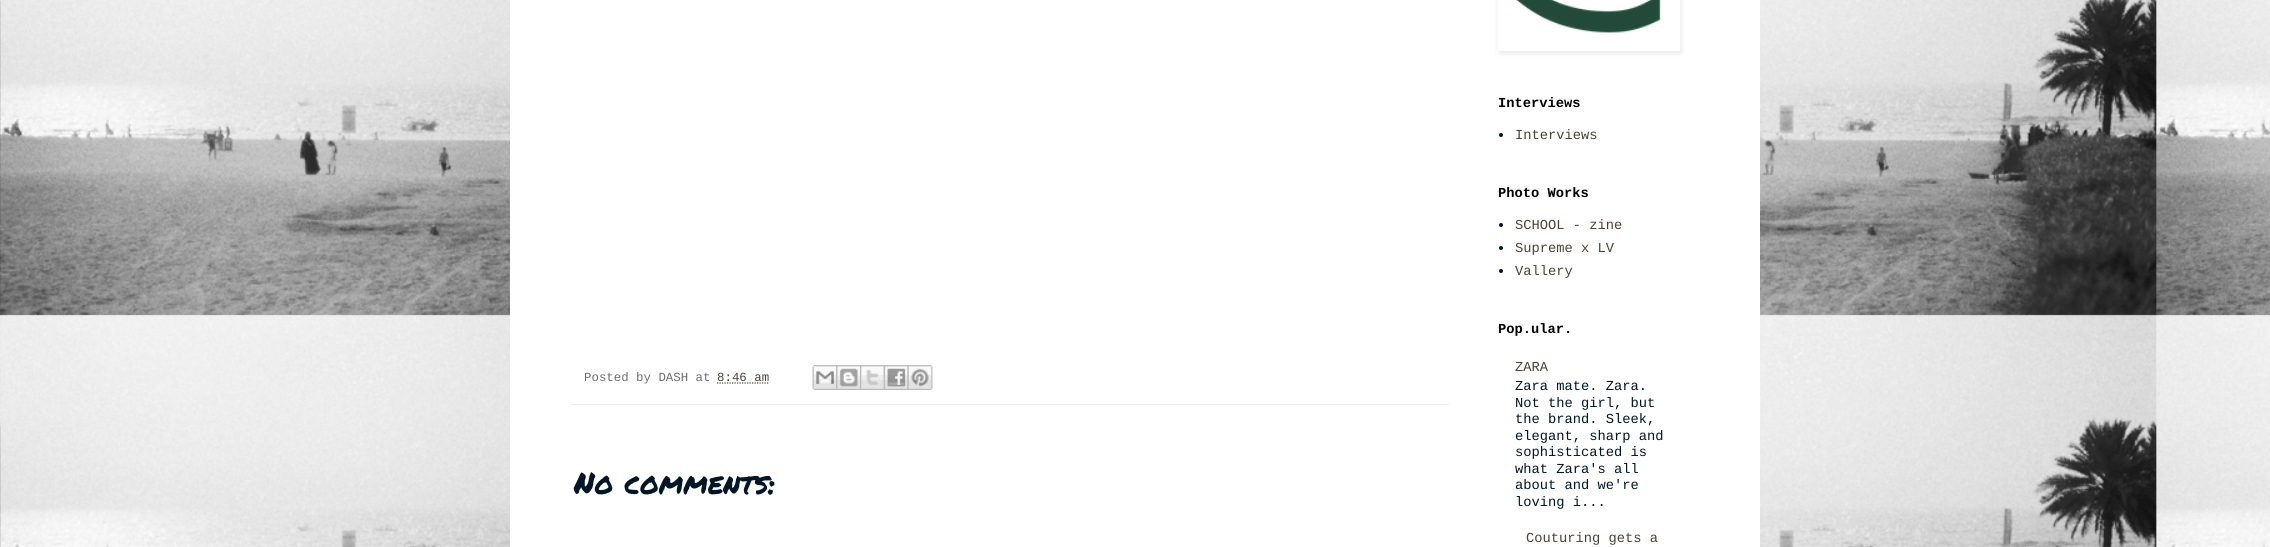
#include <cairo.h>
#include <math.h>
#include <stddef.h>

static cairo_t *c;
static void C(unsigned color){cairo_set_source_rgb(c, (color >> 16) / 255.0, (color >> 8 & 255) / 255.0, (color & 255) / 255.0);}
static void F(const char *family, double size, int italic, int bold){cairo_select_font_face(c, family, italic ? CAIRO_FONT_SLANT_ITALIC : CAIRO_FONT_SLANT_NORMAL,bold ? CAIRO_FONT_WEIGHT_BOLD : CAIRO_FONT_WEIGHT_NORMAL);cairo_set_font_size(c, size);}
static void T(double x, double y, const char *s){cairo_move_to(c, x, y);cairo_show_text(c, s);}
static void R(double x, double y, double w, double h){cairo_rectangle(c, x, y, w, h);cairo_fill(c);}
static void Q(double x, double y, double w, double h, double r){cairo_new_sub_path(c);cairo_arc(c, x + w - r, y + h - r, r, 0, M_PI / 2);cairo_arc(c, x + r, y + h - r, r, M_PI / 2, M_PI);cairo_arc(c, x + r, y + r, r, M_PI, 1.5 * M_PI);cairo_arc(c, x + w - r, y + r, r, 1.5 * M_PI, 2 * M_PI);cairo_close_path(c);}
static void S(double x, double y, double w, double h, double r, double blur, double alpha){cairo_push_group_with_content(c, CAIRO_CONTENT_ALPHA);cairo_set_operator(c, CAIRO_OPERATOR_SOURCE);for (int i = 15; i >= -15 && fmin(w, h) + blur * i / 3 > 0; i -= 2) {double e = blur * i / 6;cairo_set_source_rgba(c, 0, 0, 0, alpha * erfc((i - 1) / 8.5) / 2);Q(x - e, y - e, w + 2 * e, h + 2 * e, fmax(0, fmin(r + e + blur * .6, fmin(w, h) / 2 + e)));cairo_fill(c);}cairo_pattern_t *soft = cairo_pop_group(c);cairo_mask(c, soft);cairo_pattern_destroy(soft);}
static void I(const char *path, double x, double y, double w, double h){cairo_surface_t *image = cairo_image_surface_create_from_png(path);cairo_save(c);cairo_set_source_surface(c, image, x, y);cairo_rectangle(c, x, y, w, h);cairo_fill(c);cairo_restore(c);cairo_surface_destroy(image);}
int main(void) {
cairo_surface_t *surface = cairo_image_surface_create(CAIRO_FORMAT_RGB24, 2270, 547);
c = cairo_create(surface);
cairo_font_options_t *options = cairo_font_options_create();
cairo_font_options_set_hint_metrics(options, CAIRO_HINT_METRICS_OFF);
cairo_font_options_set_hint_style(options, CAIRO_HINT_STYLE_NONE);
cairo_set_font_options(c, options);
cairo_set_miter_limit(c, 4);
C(0xffffff);
cairo_paint(c);
I("1.png",0,0,2270,547);
C(0xffffff);
R(510,0,1250,547);
C(0xeeeeee);
R(571,404,878,1);
F("Liberation Mono",12.4,0,0);
C(0x6e6e6e);
T(584,381,"Posted by DASH at");
C(0x4c4136);
T(717,381,"8:46 am");
cairo_new_path(c);
cairo_move_to(c,717,383);
cairo_line_to(c,769,383);
cairo_set_line_width(c,1.2);
cairo_set_dash(c,(double[]){1.25,1.25},2,0);
cairo_stroke(c);
I("2.png",812,365,25,25);
I("3.png",836,365,24,25);
I("4.png",860,365,24,25);
I("5.png",883,365,25,25);
I("6.png",907,365,26,25);
F("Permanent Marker",30,0,0);
C(0x021628);
T(574,494,"No comments:");
cairo_save(c);
cairo_set_fill_rule(c,CAIRO_FILL_RULE_EVEN_ODD);
cairo_new_path(c);
cairo_move_to(c,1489,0);
cairo_line_to(c,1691,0);
cairo_line_to(c,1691,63);
cairo_line_to(c,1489,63);
cairo_close_path(c);
cairo_move_to(c,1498,-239);
cairo_line_to(c,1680,-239);
cairo_line_to(c,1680,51);
cairo_line_to(c,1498,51);
cairo_close_path(c);
cairo_clip(c);
C(0x000000);
S(1499,-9,182,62,0,3,.1);
cairo_restore(c);
I("7.png",1516,0,145,34);
F("Liberation Mono",13.75,0,1);
C(0x000000);
T(1498,107,"Interviews");
C(0x021628);
cairo_new_path(c);
cairo_arc(c,1501,135,2,0,2 * M_PI);
cairo_fill(c);
F("Liberation Mono",13.75,0,0);
C(0x4c4136);
T(1515,139,"Interviews");
F("Liberation Mono",13.75,0,1);
C(0x000000);
T(1498,197,"Photo Works");
C(0x021628);
cairo_new_path(c);
cairo_arc(c,1501,225,2,0,2 * M_PI);
cairo_fill(c);
F("Liberation Mono",13.75,0,0);
C(0x4c4136);
T(1515,229,"SCHOOL - zine");
C(0x021628);
cairo_new_path(c);
cairo_arc(c,1501,248,2,0,2 * M_PI);
cairo_fill(c);
C(0x4c4136);
T(1515,252,"Supreme x LV");
C(0x021628);
cairo_new_path(c);
cairo_arc(c,1501,271,2,0,2 * M_PI);
cairo_fill(c);
C(0x4c4136);
T(1515,275,"Vallery");
F("Liberation Mono",13.75,0,1);
C(0x000000);
T(1498,333,"Pop.ular.");
F("Liberation Mono",13.75,0,0);
C(0x4c4136);
T(1515,371,"ZARA");
C(0x021628);
T(1515,390,"Zara mate. Zara.");
T(1515,407,"Not the girl, but");
T(1515,423,"the brand. Sleek,");
T(1515,440,"elegant, sharp and");
T(1515,456,"sophisticated is");
T(1515,473,"what Zara's all");
T(1515,489,"about and we're");
T(1515,506,"loving i...");
C(0x4c4136);
T(1526,542,"Couturing gets a");
cairo_surface_write_to_png(surface, "o.png");
cairo_font_options_destroy(options);
cairo_destroy(c);
cairo_surface_destroy(surface);
return 0;
}
